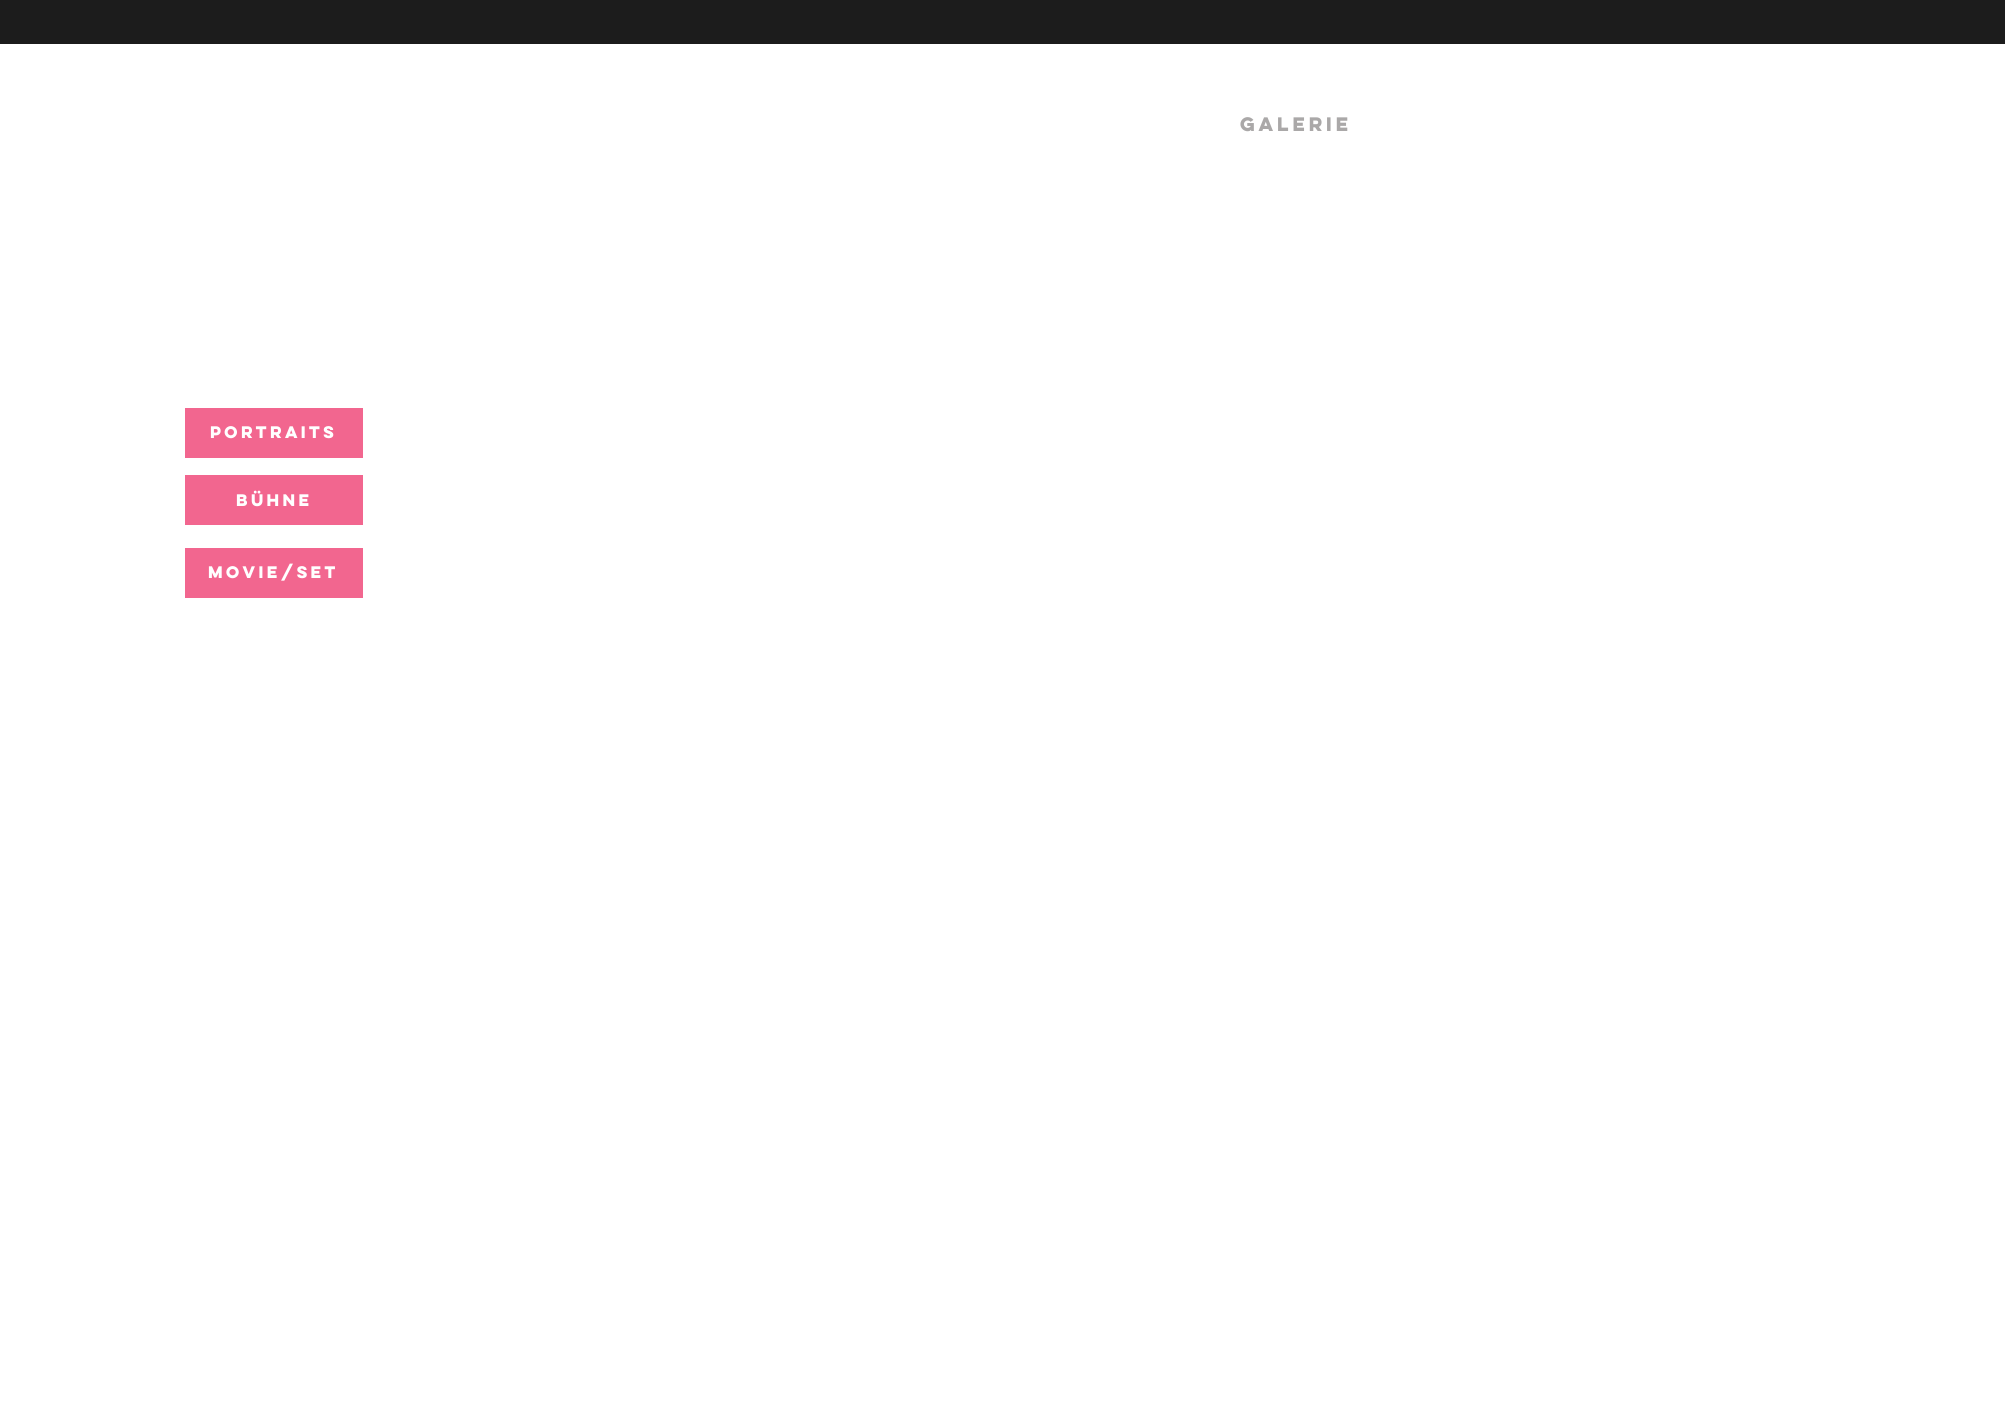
#include <cairo.h>
#include <math.h>
#include <stddef.h>

static cairo_t *c;
static void C(unsigned color){cairo_set_source_rgb(c, (color >> 16) / 255.0, (color >> 8 & 255) / 255.0, (color & 255) / 255.0);}
static void F(const char *family, double size, int italic, int bold){cairo_select_font_face(c, family, italic ? CAIRO_FONT_SLANT_ITALIC : CAIRO_FONT_SLANT_NORMAL,bold ? CAIRO_FONT_WEIGHT_BOLD : CAIRO_FONT_WEIGHT_NORMAL);cairo_set_font_size(c, size);}
static void T(double x, double y, const char *s){cairo_move_to(c, x, y);cairo_show_text(c, s);}
static void R(double x, double y, double w, double h){cairo_rectangle(c, x, y, w, h);cairo_fill(c);}
int main(void) {
cairo_surface_t *surface = cairo_image_surface_create(CAIRO_FORMAT_RGB24, 2005, 1417);
c = cairo_create(surface);
cairo_font_options_t *options = cairo_font_options_create();
cairo_font_options_set_hint_metrics(options, CAIRO_HINT_METRICS_OFF);
cairo_font_options_set_hint_style(options, CAIRO_HINT_STYLE_NONE);
cairo_set_font_options(c, options);
cairo_set_miter_limit(c, 4);
C(0xffffff);
cairo_paint(c);
C(0x1c1c1c);
R(0,0,2005,44);
F("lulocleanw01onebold",17.5,0,1);
C(0xaaa8a8);
T(1240,131,"Galerie");
C(0xf2668f);
R(185,408,178,50);
F("lulocleanw01onebold",15,0,1);
C(0xffffff);
T(210,438,"Portraits");
C(0xf2668f);
R(185,475,178,50);
C(0xffffff);
T(236,506,"Bühne");
C(0xf2668f);
R(185,548,178,50);
C(0xffffff);
T(208,578,"Movie/Set");
cairo_surface_write_to_png(surface, "o.png");
cairo_font_options_destroy(options);
cairo_destroy(c);
cairo_surface_destroy(surface);
return 0;
}
